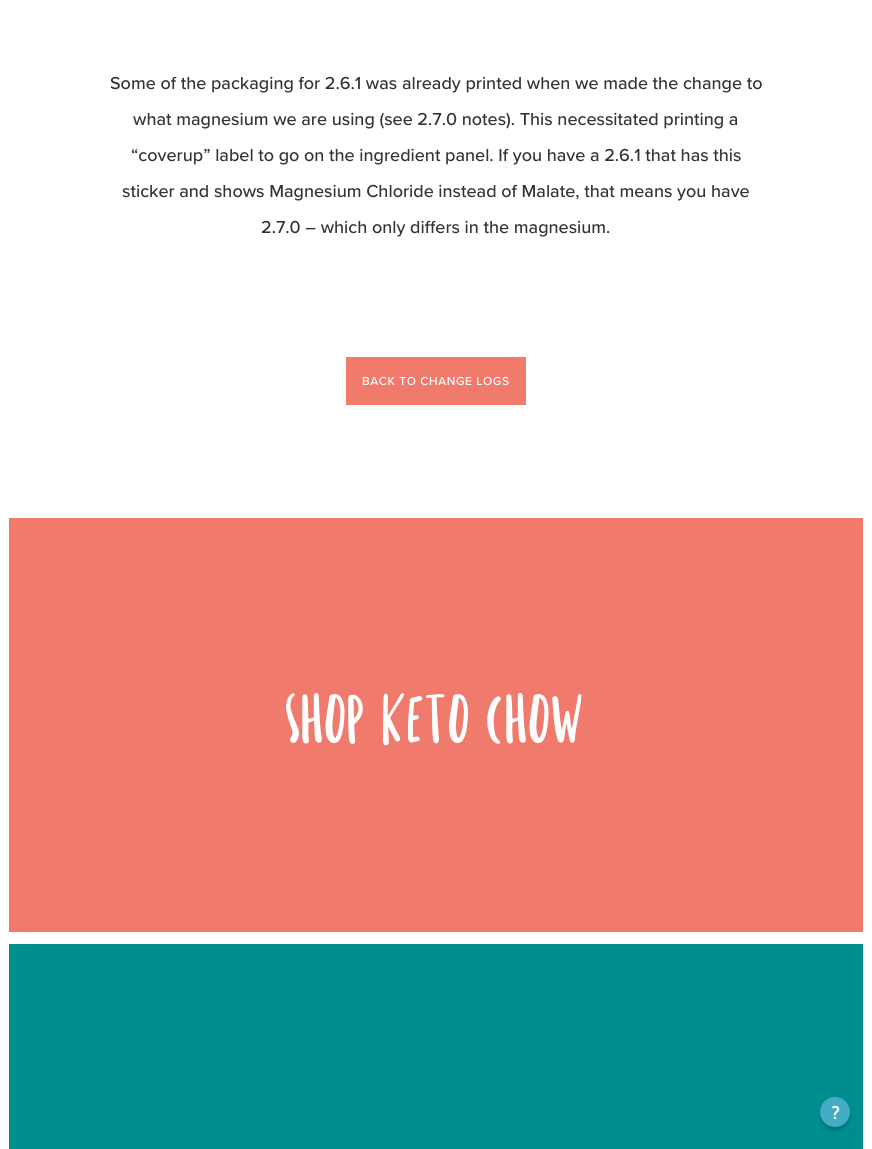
#include <cairo.h>
#include <math.h>
#include <stddef.h>

static cairo_t *c;
static void C(unsigned color){cairo_set_source_rgb(c, (color >> 16) / 255.0, (color >> 8 & 255) / 255.0, (color & 255) / 255.0);}
static void F(const char *family, double size, int italic, int bold){cairo_select_font_face(c, family, italic ? CAIRO_FONT_SLANT_ITALIC : CAIRO_FONT_SLANT_NORMAL,bold ? CAIRO_FONT_WEIGHT_BOLD : CAIRO_FONT_WEIGHT_NORMAL);cairo_set_font_size(c, size);}
static void T(double x, double y, const char *s){cairo_move_to(c, x, y);cairo_show_text(c, s);}
static void L(double x, double y, const char *s, double letter, double word){cairo_move_to(c, x, y);while (*s) {char ch[5] = {0};int n = 0;do ch[n++] = *s++; while ((*s & 0xC0) == 0x80);cairo_show_text(c, ch);cairo_rel_move_to(c, letter + word * (*ch == ' '), 0);}}
static void R(double x, double y, double w, double h){cairo_rectangle(c, x, y, w, h);cairo_fill(c);}
static void Q(double x, double y, double w, double h, double r){cairo_new_sub_path(c);cairo_arc(c, x + w - r, y + h - r, r, 0, M_PI / 2);cairo_arc(c, x + r, y + h - r, r, M_PI / 2, M_PI);cairo_arc(c, x + r, y + r, r, M_PI, 1.5 * M_PI);cairo_arc(c, x + w - r, y + r, r, 1.5 * M_PI, 2 * M_PI);cairo_close_path(c);}
static void S(double x, double y, double w, double h, double r, double blur, double alpha){cairo_push_group_with_content(c, CAIRO_CONTENT_ALPHA);cairo_set_operator(c, CAIRO_OPERATOR_SOURCE);for (int i = 15; i >= -15 && fmin(w, h) + blur * i / 3 > 0; i -= 2) {double e = blur * i / 6;cairo_set_source_rgba(c, 0, 0, 0, alpha * erfc((i - 1) / 8.5) / 2);Q(x - e, y - e, w + 2 * e, h + 2 * e, fmax(0, fmin(r + e + blur * .6, fmin(w, h) / 2 + e)));cairo_fill(c);}cairo_pattern_t *soft = cairo_pop_group(c);cairo_mask(c, soft);cairo_pattern_destroy(soft);}
static void I(const char *path, double x, double y, double w, double h){cairo_surface_t *image = cairo_image_surface_create_from_png(path);cairo_save(c);cairo_set_source_surface(c, image, x, y);cairo_rectangle(c, x, y, w, h);cairo_fill(c);cairo_restore(c);cairo_surface_destroy(image);}
int main(void) {
cairo_surface_t *surface = cairo_image_surface_create(CAIRO_FORMAT_RGB24, 872, 1149);
c = cairo_create(surface);
cairo_font_options_t *options = cairo_font_options_create();
cairo_font_options_set_hint_metrics(options, CAIRO_HINT_METRICS_OFF);
cairo_font_options_set_hint_style(options, CAIRO_HINT_STYLE_NONE);
cairo_set_font_options(c, options);
cairo_set_miter_limit(c, 4);
C(0xffffff);
cairo_paint(c);
F("Proxima Nova Medium",18,0,0);
C(0x333333);
T(110,89,"Some of the packaging for 2.6.1 was already printed when we made the change to");
T(133,125,"what magnesium we are using (see 2.7.0 notes). This necessitated printing a");
T(131,161,"“coverup” label to go on the ingredient panel. If you have a 2.6.1 that has this");
T(122,197,"sticker and shows Magnesium Chloride instead of Malate, that means you have");
T(261,233,"2.7.0 – which only differs in the magnesium.");
C(0xf07b6d);
R(346,357,180,48);
F("Proxima Nova Medium",12,0,0);
C(0xffffff);
L(362,385,"BACK TO CHANGE LOGS",.6,0);
C(0xf07b6d);
R(9,518,854,414);
F("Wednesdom",72,0,0);
C(0xffffff);
L(286,739,"SHOP KETO CHOW",1.1,0);
C(0x008d8f);
R(9,944,854,205);
C(0x000707);
S(820,1100,30,30,15,1.5,.2);
C(0x44abc5);
cairo_arc(c,835,1112,15,0,2 * M_PI);
cairo_fill(c);
I("1.png",832,1105,8,14);
cairo_surface_write_to_png(surface, "o.png");
cairo_font_options_destroy(options);
cairo_destroy(c);
cairo_surface_destroy(surface);
return 0;
}
